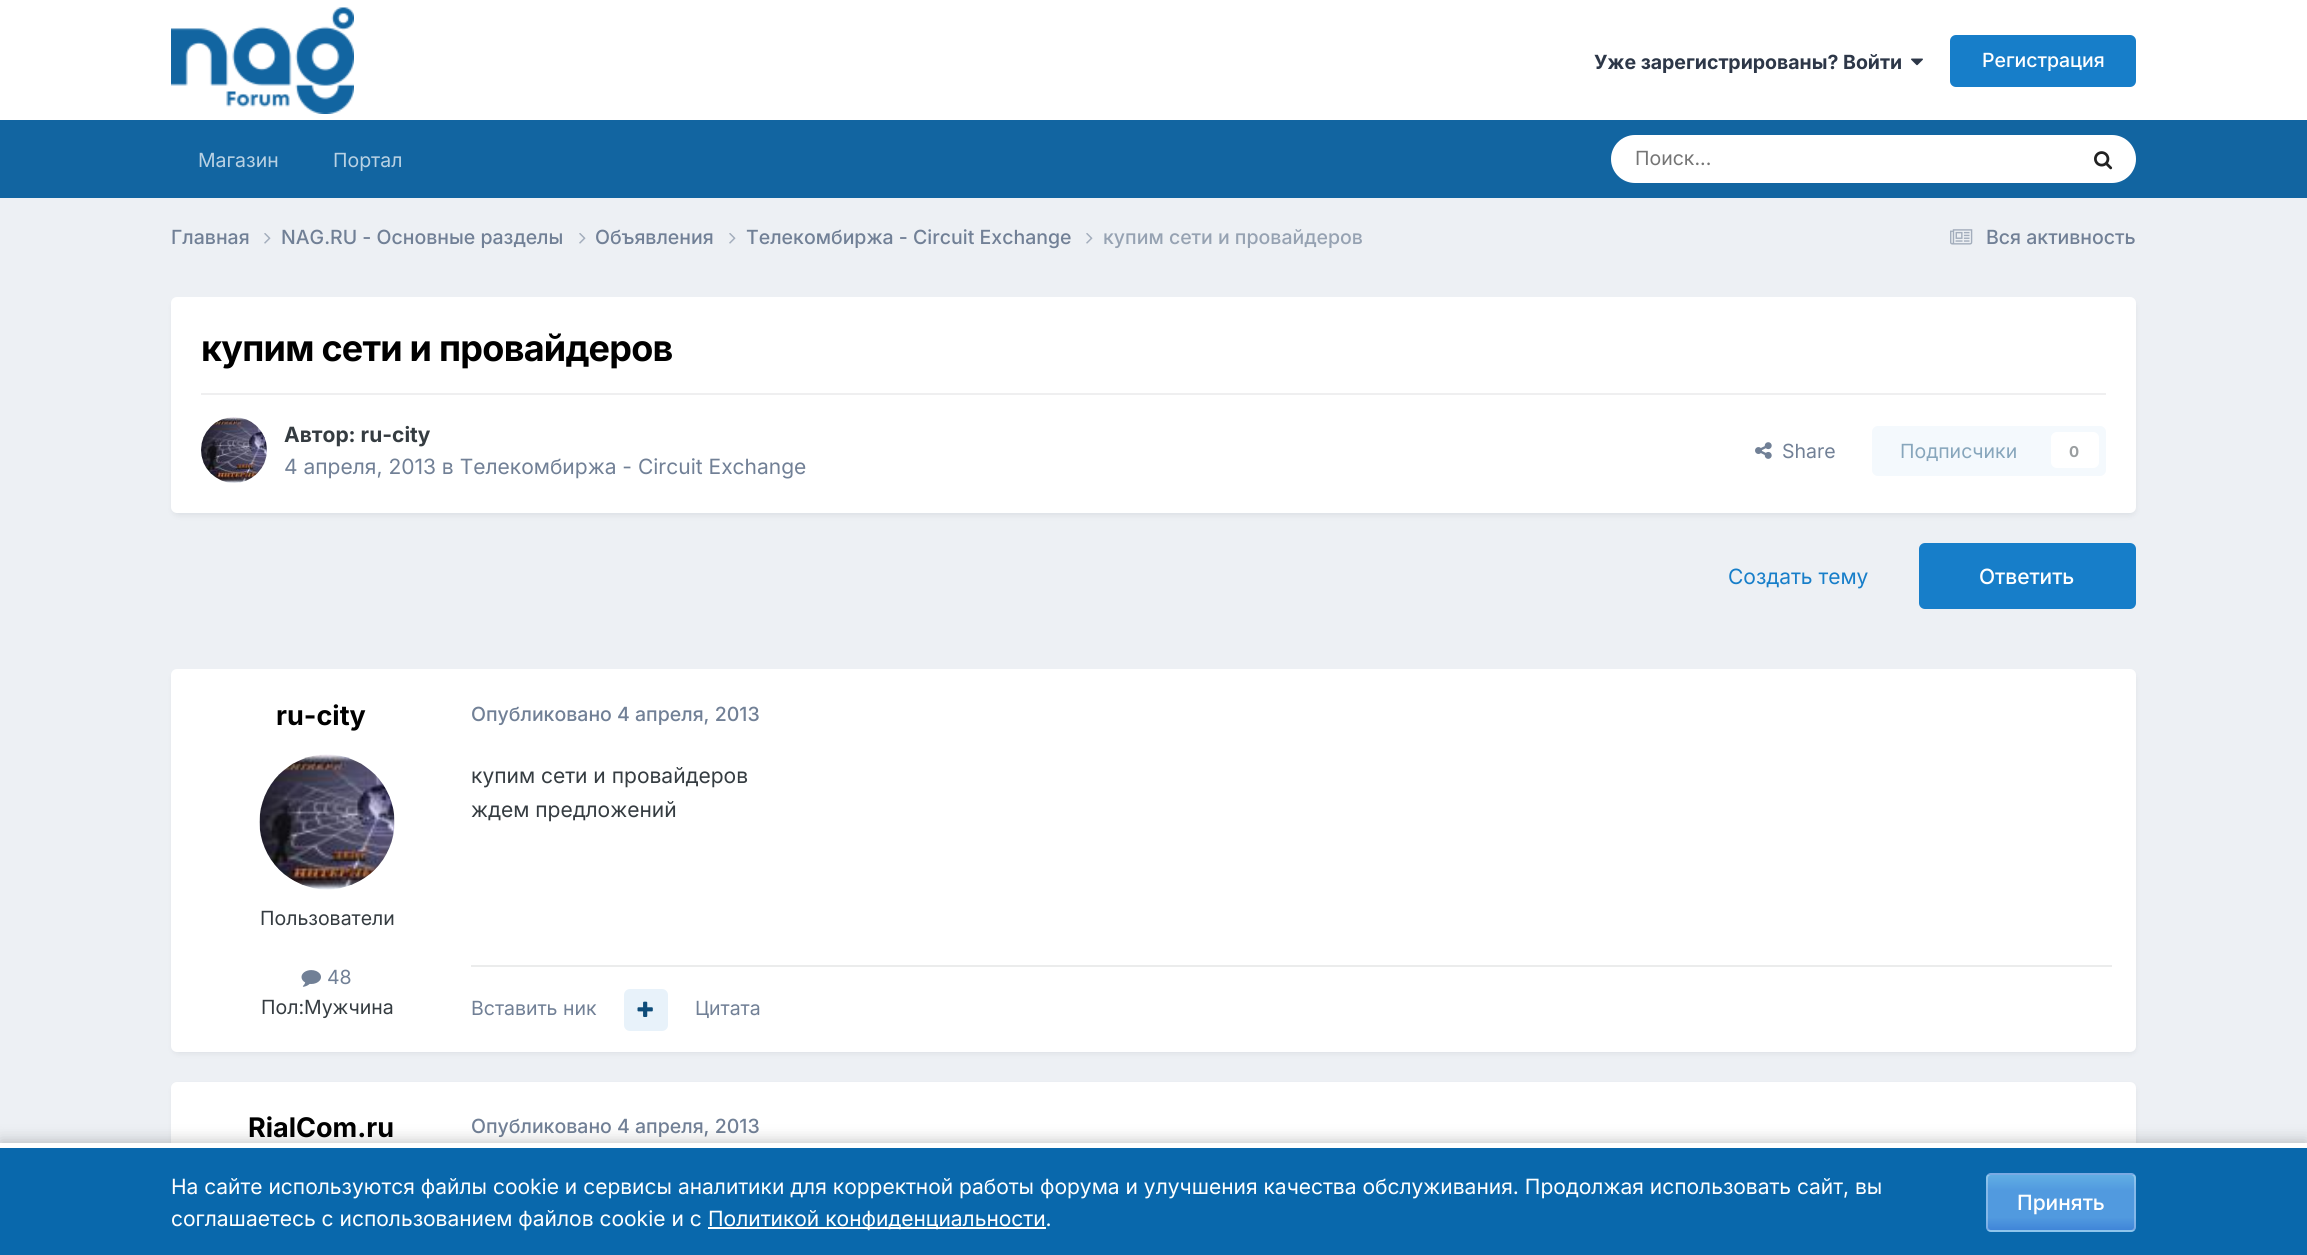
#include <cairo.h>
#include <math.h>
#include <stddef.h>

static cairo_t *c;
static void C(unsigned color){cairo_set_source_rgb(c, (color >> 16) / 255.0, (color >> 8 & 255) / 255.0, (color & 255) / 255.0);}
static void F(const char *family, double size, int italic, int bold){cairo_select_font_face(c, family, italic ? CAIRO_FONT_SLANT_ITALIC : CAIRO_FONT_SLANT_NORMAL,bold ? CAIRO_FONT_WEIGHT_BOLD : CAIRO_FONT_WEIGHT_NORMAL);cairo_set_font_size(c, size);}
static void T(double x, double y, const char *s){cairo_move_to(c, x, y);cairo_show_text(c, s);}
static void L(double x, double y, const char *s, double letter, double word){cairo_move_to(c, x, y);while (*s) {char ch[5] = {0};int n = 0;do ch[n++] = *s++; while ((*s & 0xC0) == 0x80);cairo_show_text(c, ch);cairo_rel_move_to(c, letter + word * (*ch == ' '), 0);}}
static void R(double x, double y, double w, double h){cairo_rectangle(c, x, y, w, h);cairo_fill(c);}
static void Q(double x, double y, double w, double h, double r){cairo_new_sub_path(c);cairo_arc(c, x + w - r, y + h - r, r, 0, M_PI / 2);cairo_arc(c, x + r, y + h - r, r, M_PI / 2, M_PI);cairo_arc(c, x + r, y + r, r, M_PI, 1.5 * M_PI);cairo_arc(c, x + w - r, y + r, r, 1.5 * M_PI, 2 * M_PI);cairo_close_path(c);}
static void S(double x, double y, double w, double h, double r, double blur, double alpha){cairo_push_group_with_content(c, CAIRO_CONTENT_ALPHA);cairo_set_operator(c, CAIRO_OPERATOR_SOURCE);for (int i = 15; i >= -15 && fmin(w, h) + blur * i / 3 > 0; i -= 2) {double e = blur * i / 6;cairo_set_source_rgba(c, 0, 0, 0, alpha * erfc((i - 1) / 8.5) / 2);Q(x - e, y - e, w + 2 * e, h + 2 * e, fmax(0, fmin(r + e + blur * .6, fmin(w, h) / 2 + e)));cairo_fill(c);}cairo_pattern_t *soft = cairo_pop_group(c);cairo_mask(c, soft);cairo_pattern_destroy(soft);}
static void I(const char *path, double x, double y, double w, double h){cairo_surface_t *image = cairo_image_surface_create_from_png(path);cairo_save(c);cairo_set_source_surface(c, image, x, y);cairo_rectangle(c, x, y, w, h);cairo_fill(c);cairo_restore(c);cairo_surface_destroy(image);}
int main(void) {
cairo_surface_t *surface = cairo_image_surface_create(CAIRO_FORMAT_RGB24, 2307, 1255);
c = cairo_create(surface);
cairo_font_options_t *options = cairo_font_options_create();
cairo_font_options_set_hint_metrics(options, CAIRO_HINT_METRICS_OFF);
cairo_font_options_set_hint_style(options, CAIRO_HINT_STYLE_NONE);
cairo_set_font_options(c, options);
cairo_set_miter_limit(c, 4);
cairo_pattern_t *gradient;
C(0xedf0f4);
cairo_paint(c);
C(0xffffff);
R(0,0,2307,120);
I("1.png",171,7,183,107);
F("Inter",19.5,0,1);
C(0x2d3748);
T(1594,69,"Уже зарегистрированы? Войти");
I("2.png",1911,58,12,8);
C(0x177ec9);
Q(1950,35,186,52,6);
cairo_fill(c);
F("Inter Medium",19.5,0,0);
C(0xffffff);
T(1982,67,"Регистрация");
C(0x1265a1);
R(0,120,2307,78);
F("Inter",19.5,0,0);
C(0xb8d1e3);
T(198,167,"Магазин");
T(333,167,"Портал");
C(0xffffff);
Q(1611,135,525,48,24);
cairo_fill(c);
C(0x757575);
T(1635,165,"Поиск...");
I("3.png",2094,151,19,19);
F("Inter Medium",19.5,0,0);
C(0x718096);
T(171,244,"Главная");
I("4.png",264,233,7,11);
T(281,244,"NAG.RU - Основные разделы");
I("4.png",579,233,7,11);
T(595,244,"Объявления");
I("4.png",729,233,7,11);
T(746,244,"Телекомбиржа - Circuit Exchange");
I("4.png",1086,233,7,11);
C(0x96a2b2);
T(1103,244,"купим сети и провайдеров");
I("5.png",1950,229,23,16);
C(0x718096);
T(1986,244,"Вся активность");
C(0x2d3748);
S(173,302,1962,213,5,3,.1);
C(0xffffff);
Q(171,297,1965,216,6);
cairo_fill(c);
F("Inter",36,0,1);
C(0x000000);
L(201,361,"купим сети и провайдеров",-.75,0);
C(0xefeff0);
R(201,393,1905,2);
I("6.png",201,417,66,66);
F("Inter",21,0,1);
C(0x353c41);
T(284,442,"Автор: ru-city");
F("Inter",21,0,0);
C(0x718096);
T(284,474,"4 апреля, 2013 в Телекомбиржа - Circuit Exchange");
I("7.png",1755,442,17,17);
F("Inter",19.5,0,0);
T(1782,458,"Share");
C(0xf4f9fd);
Q(1872,426,234,50,6);
cairo_fill(c);
C(0x87a6bc);
T(1900,458,"Подписчики");
C(0xffffff);
Q(2051,432,48,36,6);
cairo_fill(c);
F("Inter",15,0,1);
C(0x9a9ea0);
T(2069,457,"0");
F("Inter",21,0,0);
C(0x177ec9);
T(1728,584,"Создать тему");
Q(1919,543,217,66,6);
cairo_fill(c);
F("Inter Medium",21,0,0);
C(0xffffff);
T(1979,584,"Ответить");
C(0x2d3748);
S(173,674,1962,379,5,3,.1);
C(0xffffff);
Q(171,669,1965,383,6);
cairo_fill(c);
F("Inter",27,0,1);
C(0x000000);
T(276,725,"ru-city");
I("8.png",259,754,136,136);
F("Inter",19.5,0,0);
C(0x353c41);
T(260,925,"Пользователи");
I("9.png",301,970,20,17);
C(0x718096);
T(327,984,"48");
C(0x353c41);
T(261,1014,"Пол:Мужчина");
F("Inter Medium",19.5,0,0);
C(0x718096);
T(471,721,"Опубликовано 4 апреля, 2013");
F("Inter",21,0,0);
C(0x353c41);
T(471,783,"купим сети и провайдеров");
T(471,817,"ждем предложений");
C(0xebecec);
R(471,965,1641,2);
F("Inter",19.5,0,0);
C(0x718096);
T(471,1015,"Вставить ник");
C(0xe8f2fa);
Q(624,989,44,42,6);
cairo_fill(c);
I("10.png",637,1001,16,16);
C(0x718096);
T(695,1015,"Цитата");
C(0x2d3748);
S(173,1086,1962,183,5,3,.1);
C(0xffffff);
Q(171,1082,1965,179,6);
cairo_fill(c);
F("Inter",27,0,1);
C(0x000000);
T(248,1137,"RialCom.ru");
F("Inter Medium",19.5,0,0);
C(0x718096);
T(471,1133,"Опубликовано 4 апреля, 2013");
C(0x000000);
S(0,1140,2307,113,0,7.5,.2);
C(0x0968ac);
R(0,1148,2307,107);
C(0xffffff);
R(0,1143,2307,5);
F("Inter",21,0,0);
T(171,1194,"На сайте используются файлы cookie и сервисы аналитики для корректной работы форума и улучшения качества обслуживания. Продолжая использовать сайт, вы");
T(171,1226,"соглашаетесь с использованием файлов cookie и с");
R(708,1227,338,2);
T(708,1226,"Политикой конфиденциальности.");
cairo_save(c);
Q(1986,1173,150,59,5);
cairo_clip(c);
gradient = cairo_pattern_create_linear(2061,1119,2061,1175);
cairo_pattern_add_color_stop_rgba(gradient,0,0.38,0.682,0.894,1);
cairo_pattern_add_color_stop_rgba(gradient,.28,0.318,0.604,0.875,1);
cairo_pattern_add_color_stop_rgba(gradient,.77,0.318,0.604,0.875,1);
cairo_pattern_add_color_stop_rgba(gradient,1,0.251,0.522,0.847,1);
cairo_set_source(c,gradient);
cairo_pattern_destroy(gradient);
R(1986,1173,150,2);
gradient = cairo_pattern_create_linear(2061,1175,2061,1230);
cairo_pattern_add_color_stop_rgba(gradient,0,0.38,0.682,0.894,1);
cairo_pattern_add_color_stop_rgba(gradient,.28,0.318,0.604,0.875,1);
cairo_pattern_add_color_stop_rgba(gradient,.77,0.318,0.604,0.875,1);
cairo_pattern_add_color_stop_rgba(gradient,1,0.251,0.522,0.847,1);
cairo_set_source(c,gradient);
cairo_pattern_destroy(gradient);
R(1986,1175,150,55);
gradient = cairo_pattern_create_linear(2061,1230,2061,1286);
cairo_pattern_add_color_stop_rgba(gradient,0,0.38,0.682,0.894,1);
cairo_pattern_add_color_stop_rgba(gradient,.28,0.318,0.604,0.875,1);
cairo_pattern_add_color_stop_rgba(gradient,.77,0.318,0.604,0.875,1);
cairo_pattern_add_color_stop_rgba(gradient,1,0.251,0.522,0.847,1);
cairo_set_source(c,gradient);
cairo_pattern_destroy(gradient);
R(1986,1230,150,2);
cairo_restore(c);
Q(1987,1174,148,57,4);
cairo_set_source_rgba(c,1,1,1,0.3);
cairo_stroke(c);
F("Inter Medium",21,0,0);
C(0xffffff);
T(2017,1210,"Принять");
cairo_surface_write_to_png(surface, "o.png");
cairo_font_options_destroy(options);
cairo_destroy(c);
cairo_surface_destroy(surface);
return 0;
}
